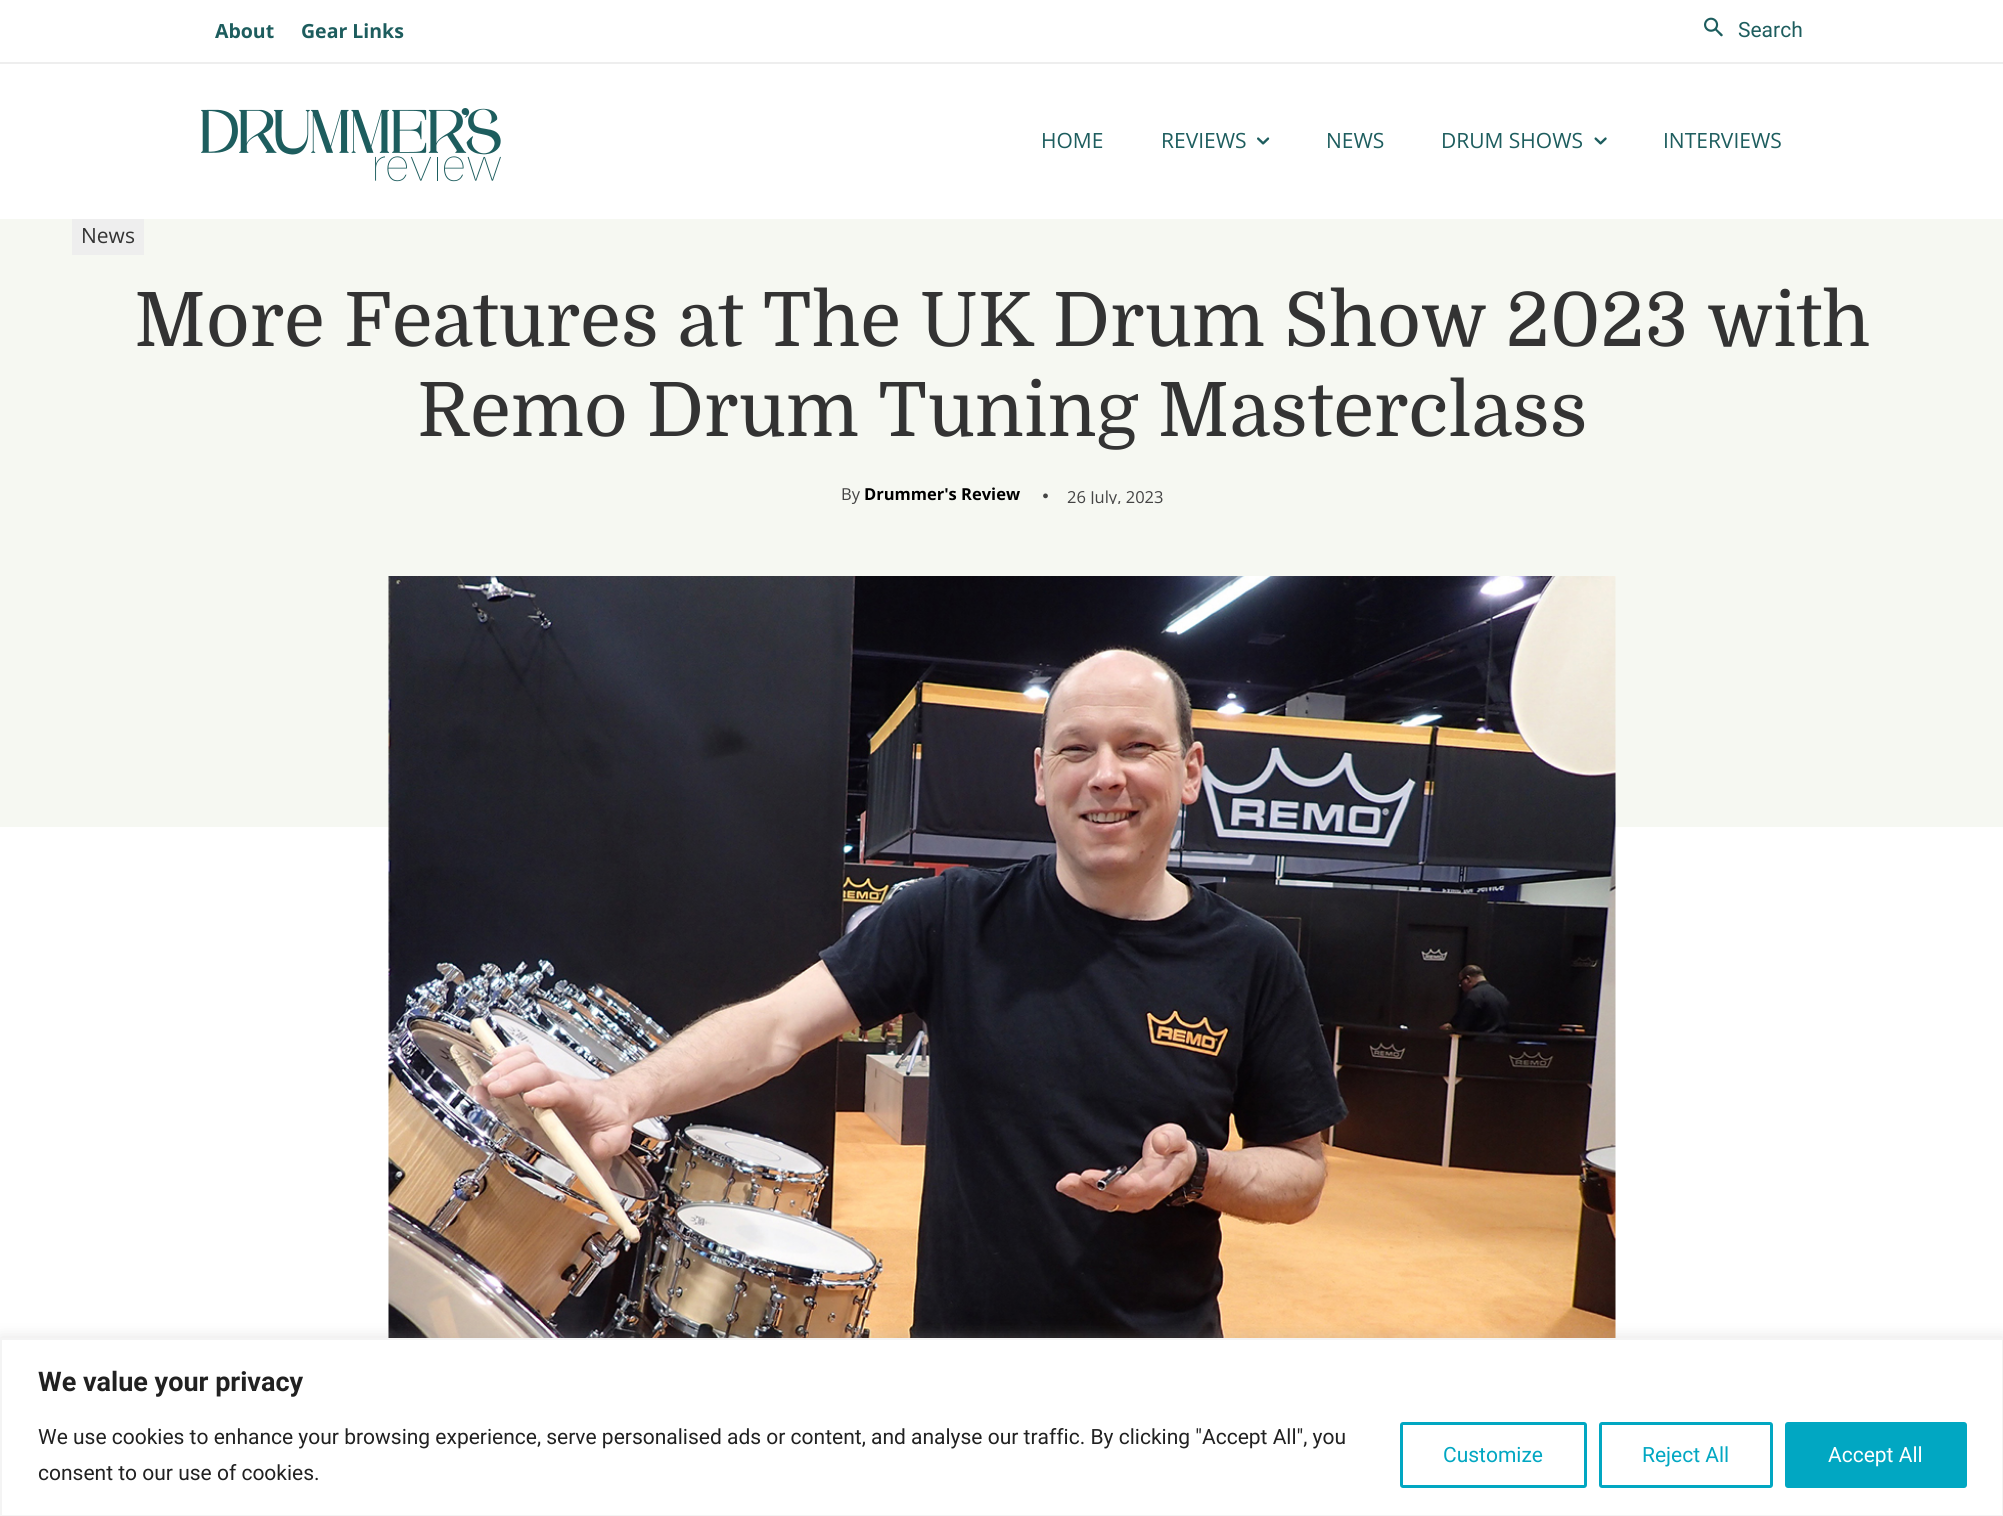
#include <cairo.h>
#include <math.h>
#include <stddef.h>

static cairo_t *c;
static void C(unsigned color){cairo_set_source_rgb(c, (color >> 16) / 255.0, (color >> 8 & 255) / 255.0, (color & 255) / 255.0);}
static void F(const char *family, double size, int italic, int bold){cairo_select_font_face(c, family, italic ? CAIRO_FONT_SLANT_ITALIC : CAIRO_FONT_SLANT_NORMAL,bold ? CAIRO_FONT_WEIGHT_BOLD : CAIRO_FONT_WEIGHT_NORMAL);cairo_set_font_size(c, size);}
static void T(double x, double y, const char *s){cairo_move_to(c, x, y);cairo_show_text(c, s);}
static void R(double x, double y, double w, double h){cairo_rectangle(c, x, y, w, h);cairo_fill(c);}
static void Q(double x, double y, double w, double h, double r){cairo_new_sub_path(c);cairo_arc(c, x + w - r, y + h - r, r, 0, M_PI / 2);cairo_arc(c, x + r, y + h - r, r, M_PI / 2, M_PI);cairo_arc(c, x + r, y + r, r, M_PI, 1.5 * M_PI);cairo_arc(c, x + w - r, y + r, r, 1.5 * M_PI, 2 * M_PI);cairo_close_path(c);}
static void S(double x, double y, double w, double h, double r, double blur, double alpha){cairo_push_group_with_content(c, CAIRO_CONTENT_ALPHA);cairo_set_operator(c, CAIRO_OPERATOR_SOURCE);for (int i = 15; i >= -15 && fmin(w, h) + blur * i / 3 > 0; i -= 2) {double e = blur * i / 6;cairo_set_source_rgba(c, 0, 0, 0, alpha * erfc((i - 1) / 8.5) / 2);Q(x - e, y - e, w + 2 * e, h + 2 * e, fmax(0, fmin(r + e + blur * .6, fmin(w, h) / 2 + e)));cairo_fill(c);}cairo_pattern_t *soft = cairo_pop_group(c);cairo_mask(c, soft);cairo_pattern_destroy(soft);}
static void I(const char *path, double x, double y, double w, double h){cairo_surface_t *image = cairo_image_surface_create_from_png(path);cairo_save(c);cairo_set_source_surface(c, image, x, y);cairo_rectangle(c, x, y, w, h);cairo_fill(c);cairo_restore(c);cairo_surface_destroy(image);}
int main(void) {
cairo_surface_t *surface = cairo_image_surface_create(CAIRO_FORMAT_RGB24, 2003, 1516);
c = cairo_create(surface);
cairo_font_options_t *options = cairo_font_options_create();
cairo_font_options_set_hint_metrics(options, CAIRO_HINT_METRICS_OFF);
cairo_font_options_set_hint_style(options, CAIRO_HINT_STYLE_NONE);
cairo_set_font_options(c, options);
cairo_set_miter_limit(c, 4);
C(0xffffff);
cairo_paint(c);
F("Open Sans",19.5,0,1);
C(0x1d5d5e);
T(215,38,"About");
T(301,38,"Gear Links");
I("1.png",1704,17,19,20);
F("Roboto",21,0,0);
T(1738,37,"Search");
C(0xeeeeee);
R(0,62,2003,2);
I("2.png",201,108,300,74);
F("Open Sans",21,0,0);
C(0x1d5d5e);
T(1041,148,"HOME");
T(1161,148,"REVIEWS");
I("3.png",1257,137,13,8);
T(1326,148,"NEWS");
T(1441,148,"DRUM SHOWS");
I("4.png",1594,137,13,8);
T(1663,148,"INTERVIEWS");
C(0xf6f8f2);
R(0,219,2003,285);
C(0xeeeeee);
R(72,219,72,36);
C(0x333333);
T(81,243,"News");
F("Domine",75,0,0);
T(134,346,"More Features at The UK Drum Show 2023 with");
T(417,436,"Remo Drum Tuning Masterclass");
F("Open Sans",16.5,0,0);
C(0x444444);
T(841,500,"By");
F("Open Sans",16.5,0,1);
C(0x000000);
T(864,500,"Drummer's Review");
I("5.png",1043,493,5,6);
F("Open Sans",16.5,0,0);
C(0x444444);
T(1067,503,"26 July, 2023");
C(0xf6f8f2);
R(0,504,2003,323);
I("6.png",388,576,1228,762);
C(0xacabab);
S(0,1337,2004,178,0,7.5,.3);
C(0xffffff);
cairo_rectangle(c,1,1339,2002,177);
cairo_fill_preserve(c);
C(0xf4f4f4);
cairo_stroke(c);
F("Roboto",27,0,1);
C(0x212121);
T(38,1391,"We value your privacy");
F("Roboto",21,0,0);
T(38,1444,"We use cookies to enhance your browsing experience, serve personalised ads or content, and analyse our traffic. By clicking \"Accept All\", you");
T(38,1480,"consent to our use of cookies.");
Q(1401.5,1423.5,184,63,1.5);
C(0x01a7c2);
cairo_set_line_width(c,3);
cairo_stroke(c);
T(1443,1462,"Customize");
Q(1600.5,1423.5,171,63,1.5);
cairo_stroke(c);
T(1642,1462,"Reject All");
Q(1786.5,1423.5,179,63,1.5);
cairo_fill_preserve(c);
cairo_stroke(c);
C(0xffffff);
T(1828,1462,"Accept All");
cairo_surface_write_to_png(surface, "o.png");
cairo_font_options_destroy(options);
cairo_destroy(c);
cairo_surface_destroy(surface);
return 0;
}
